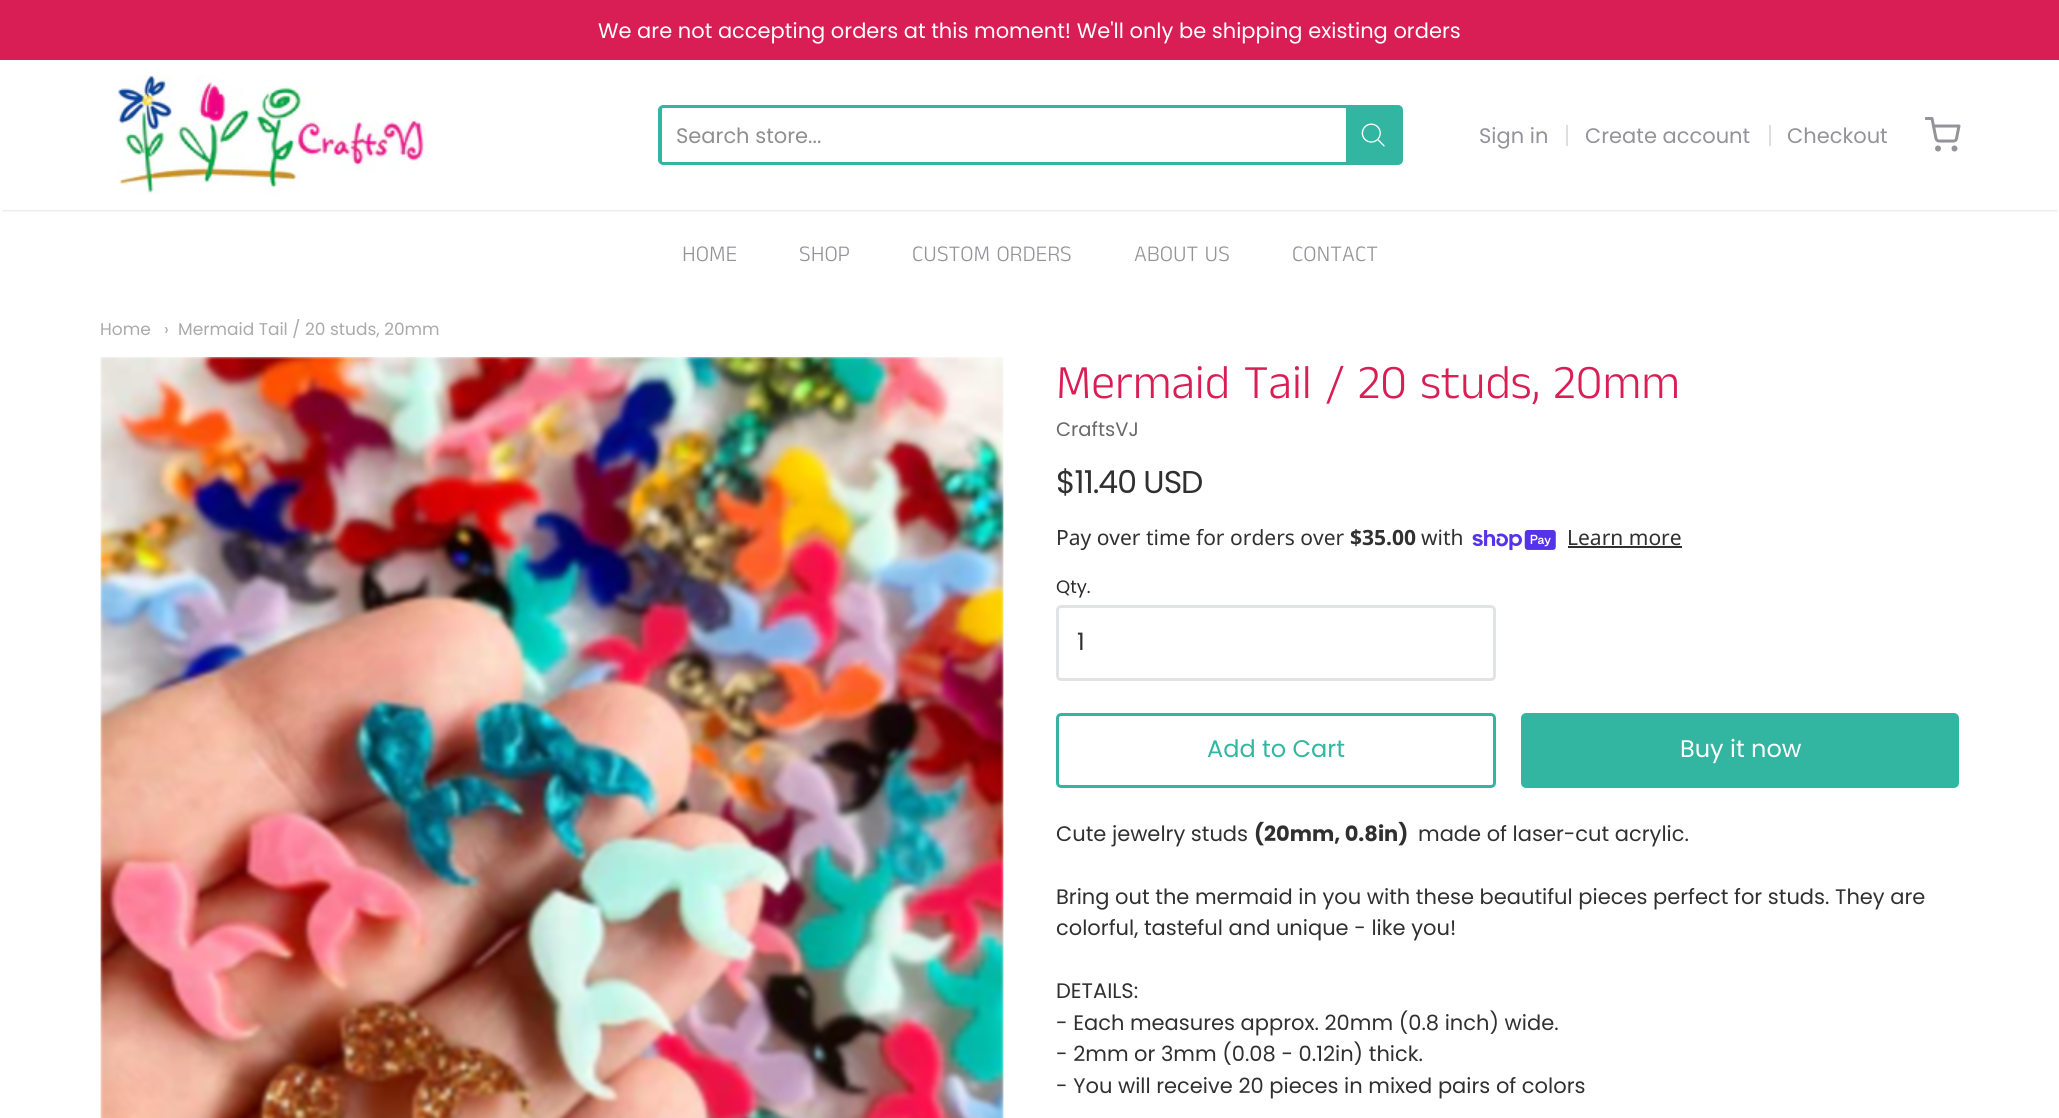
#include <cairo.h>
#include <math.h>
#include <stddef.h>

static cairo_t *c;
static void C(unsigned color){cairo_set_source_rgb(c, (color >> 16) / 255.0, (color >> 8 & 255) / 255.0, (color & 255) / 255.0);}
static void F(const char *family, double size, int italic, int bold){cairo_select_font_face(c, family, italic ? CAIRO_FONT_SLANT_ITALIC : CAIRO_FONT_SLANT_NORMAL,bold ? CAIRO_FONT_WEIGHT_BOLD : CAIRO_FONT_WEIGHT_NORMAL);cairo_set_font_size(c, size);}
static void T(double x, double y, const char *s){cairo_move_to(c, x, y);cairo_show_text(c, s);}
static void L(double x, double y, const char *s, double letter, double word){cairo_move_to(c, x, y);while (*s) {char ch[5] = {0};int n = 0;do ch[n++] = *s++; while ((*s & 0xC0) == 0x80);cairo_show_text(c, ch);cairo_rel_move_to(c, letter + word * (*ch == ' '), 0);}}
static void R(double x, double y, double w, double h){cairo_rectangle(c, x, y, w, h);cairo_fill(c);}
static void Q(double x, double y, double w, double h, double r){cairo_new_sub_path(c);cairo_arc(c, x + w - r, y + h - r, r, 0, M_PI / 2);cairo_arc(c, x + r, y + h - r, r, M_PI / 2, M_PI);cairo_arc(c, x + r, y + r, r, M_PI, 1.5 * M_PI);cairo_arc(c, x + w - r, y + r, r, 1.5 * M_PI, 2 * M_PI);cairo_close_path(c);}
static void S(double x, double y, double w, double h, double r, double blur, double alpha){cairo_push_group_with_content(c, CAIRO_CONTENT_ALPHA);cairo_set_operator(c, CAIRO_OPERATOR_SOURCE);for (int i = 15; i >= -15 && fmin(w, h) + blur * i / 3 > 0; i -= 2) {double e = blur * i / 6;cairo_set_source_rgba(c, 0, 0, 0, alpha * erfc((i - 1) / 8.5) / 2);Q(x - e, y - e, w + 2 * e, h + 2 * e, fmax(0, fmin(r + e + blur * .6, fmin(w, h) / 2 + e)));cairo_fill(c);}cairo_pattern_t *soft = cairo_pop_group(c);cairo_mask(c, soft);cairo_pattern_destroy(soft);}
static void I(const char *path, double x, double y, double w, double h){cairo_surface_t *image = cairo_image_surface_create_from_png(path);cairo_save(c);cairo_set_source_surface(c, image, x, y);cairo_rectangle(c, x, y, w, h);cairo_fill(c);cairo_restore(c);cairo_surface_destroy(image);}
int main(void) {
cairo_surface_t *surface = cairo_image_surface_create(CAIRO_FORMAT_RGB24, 2059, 1118);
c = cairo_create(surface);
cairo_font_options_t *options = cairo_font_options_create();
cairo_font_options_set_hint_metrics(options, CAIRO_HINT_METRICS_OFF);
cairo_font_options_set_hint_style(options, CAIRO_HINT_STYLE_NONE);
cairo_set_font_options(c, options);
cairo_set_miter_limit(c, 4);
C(0xffffff);
cairo_paint(c);
C(0xd91e56);
R(0,0,2059,60);
F("Poppins",21,0,0);
C(0xffffff);
T(598,38,"We are not accepting orders at this moment! We'll only be shipping existing orders");
cairo_save(c);
cairo_rectangle(c,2,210,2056,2);
cairo_clip(c);
C(0x000000);
S(3,66,2054,144,0,1.5,.2);
cairo_restore(c);
I("1.png",116,75,310,120);
C(0x32b6a1);
cairo_set_fill_rule(c,CAIRO_FILL_RULE_EVEN_ODD);
cairo_new_path(c);
cairo_move_to(c,663,105);
cairo_line_to(c,1346,105);
cairo_line_to(c,1346,165);
cairo_line_to(c,663,165);
cairo_curve_to(c,661,165,658,163,658,160);
cairo_line_to(c,658,110);
cairo_curve_to(c,658,107,661,105,663,105);
cairo_close_path(c);
cairo_move_to(c,663,108);
cairo_line_to(c,1346,108);
cairo_line_to(c,1346,162);
cairo_line_to(c,663,162);
cairo_curve_to(c,662,162,662,161,662,160);
cairo_line_to(c,662,110);
cairo_curve_to(c,662,109,662,108,663,108);
cairo_close_path(c);
cairo_fill(c);
C(0x8f8f8f);
T(676,143,"Search store...");
C(0x32b6a1);
cairo_new_path(c);
cairo_move_to(c,1347.5,106.5);
cairo_line_to(c,1398,106.5);
cairo_curve_to(c,1400,106.5,1401.5,108,1401.5,110);
cairo_line_to(c,1401.5,160);
cairo_curve_to(c,1401.5,162,1400,163.5,1398,163.5);
cairo_line_to(c,1347.5,163.5);
cairo_close_path(c);
cairo_fill_preserve(c);
cairo_set_line_width(c,3);
cairo_stroke(c);
I("2.png",1361,123,24,24);
C(0x939399);
T(1479,143,"Sign in");
C(0xdfdfe0);
R(1566,125,2,21);
C(0x939399);
T(1585,143,"Create account");
C(0xdfdfe0);
R(1769,125,2,21);
C(0x939399);
T(1787,143,"Checkout");
cairo_save(c);
cairo_set_fill_rule(c,CAIRO_FILL_RULE_WINDING);
cairo_rectangle(c,1925,117,36,36);
cairo_clip(c);
cairo_new_path(c);
cairo_move_to(c,1926,118.5);
cairo_line_to(c,1932,118.5);
cairo_line_to(c,1936,138.5);
cairo_curve_to(c,1936.5,140,1937.5,141,1939,141);
cairo_line_to(c,1953.5,141);
cairo_curve_to(c,1955,141,1956.5,140,1956.5,138.5);
cairo_line_to(c,1959,126);
cairo_line_to(c,1933.5,126);
cairo_set_line_cap(c,CAIRO_LINE_CAP_ROUND);
cairo_set_line_join(c,CAIRO_LINE_JOIN_ROUND);
cairo_stroke(c);
cairo_restore(c);
cairo_arc(c,1938,148.5,1.5,0,2 * M_PI);
cairo_stroke(c);
cairo_arc(c,1954.5,148.5,1.5,0,2 * M_PI);
cairo_stroke(c);
F("Anek Tamil Light",22.5,0,0);
T(682,261,"HOME");
T(799,261,"SHOP");
T(912,261,"CUSTOM ORDERS");
T(1134,261,"ABOUT US");
T(1292,261,"CONTACT");
F("Poppins",17,0,0);
C(0xa9aaaa);
T(100,335,"Home");
T(164,335,"›");
T(178,335,"Mermaid Tail / 20 studs, 20mm");
I("3.png",100,357,904,761);
F("Anek Tamil Light",48,0,0);
C(0xd91e56);
T(1056,398,"Mermaid Tail / 20 studs, 20mm");
F("Poppins",19.5,0,0);
C(0x696969);
T(1056,436,"CraftsVJ");
F("Poppins",31.5,0,0);
C(0x303030);
L(1056,493,"$11.40 USD",-1,0);
F("Noto Sans",21,0,0);
T(1056,545,"Pay over time for orders over");
F("Noto Sans",21,0,1);
T(1350,545,"$35.00");
F("Noto Sans",21,0,0);
T(1421,545,"with");
I("4.png",1472,530,84,21);
T(1567,545,"Learn more");
R(1568,546,114,2);
F("Poppins",18,0,0);
C(0x2a2b2b);
T(1056,593,"Qty.");
Q(1057.5,606.5,437,73,3.5);
C(0xe1e3e4);
cairo_stroke(c);
F("Poppins",24,0,0);
C(0x303030);
T(1077,650,"1");
Q(1057.5,714.5,437,72,3.5);
C(0x32b6a1);
cairo_stroke(c);
T(1207,757,"Add to Cart");
Q(1522.5,714.5,435,72,3.5);
cairo_fill_preserve(c);
cairo_stroke(c);
C(0xffffff);
T(1680,757,"Buy it now");
F("Poppins",21,0,0);
C(0x303030);
T(1056,841,"Cute jewelry studs");
F("Poppins",21,0,1);
T(1254,841,"(20mm, 0.8in)");
F("Poppins",21,0,0);
T(1418,841,"made of laser-cut acrylic.");
T(1056,904,"Bring out the mermaid in you with these beautiful pieces perfect for studs. They are");
T(1056,935,"colorful, tasteful and unique - like you!");
T(1056,998,"DETAILS:");
T(1056,1030,"- Each measures approx. 20mm (0.8 inch) wide.");
T(1056,1061,"- 2mm or 3mm (0.08 - 0.12in) thick.");
T(1056,1093,"- You will receive 20 pieces in mixed pairs of colors");
cairo_surface_write_to_png(surface, "o.png");
cairo_font_options_destroy(options);
cairo_destroy(c);
cairo_surface_destroy(surface);
return 0;
}
